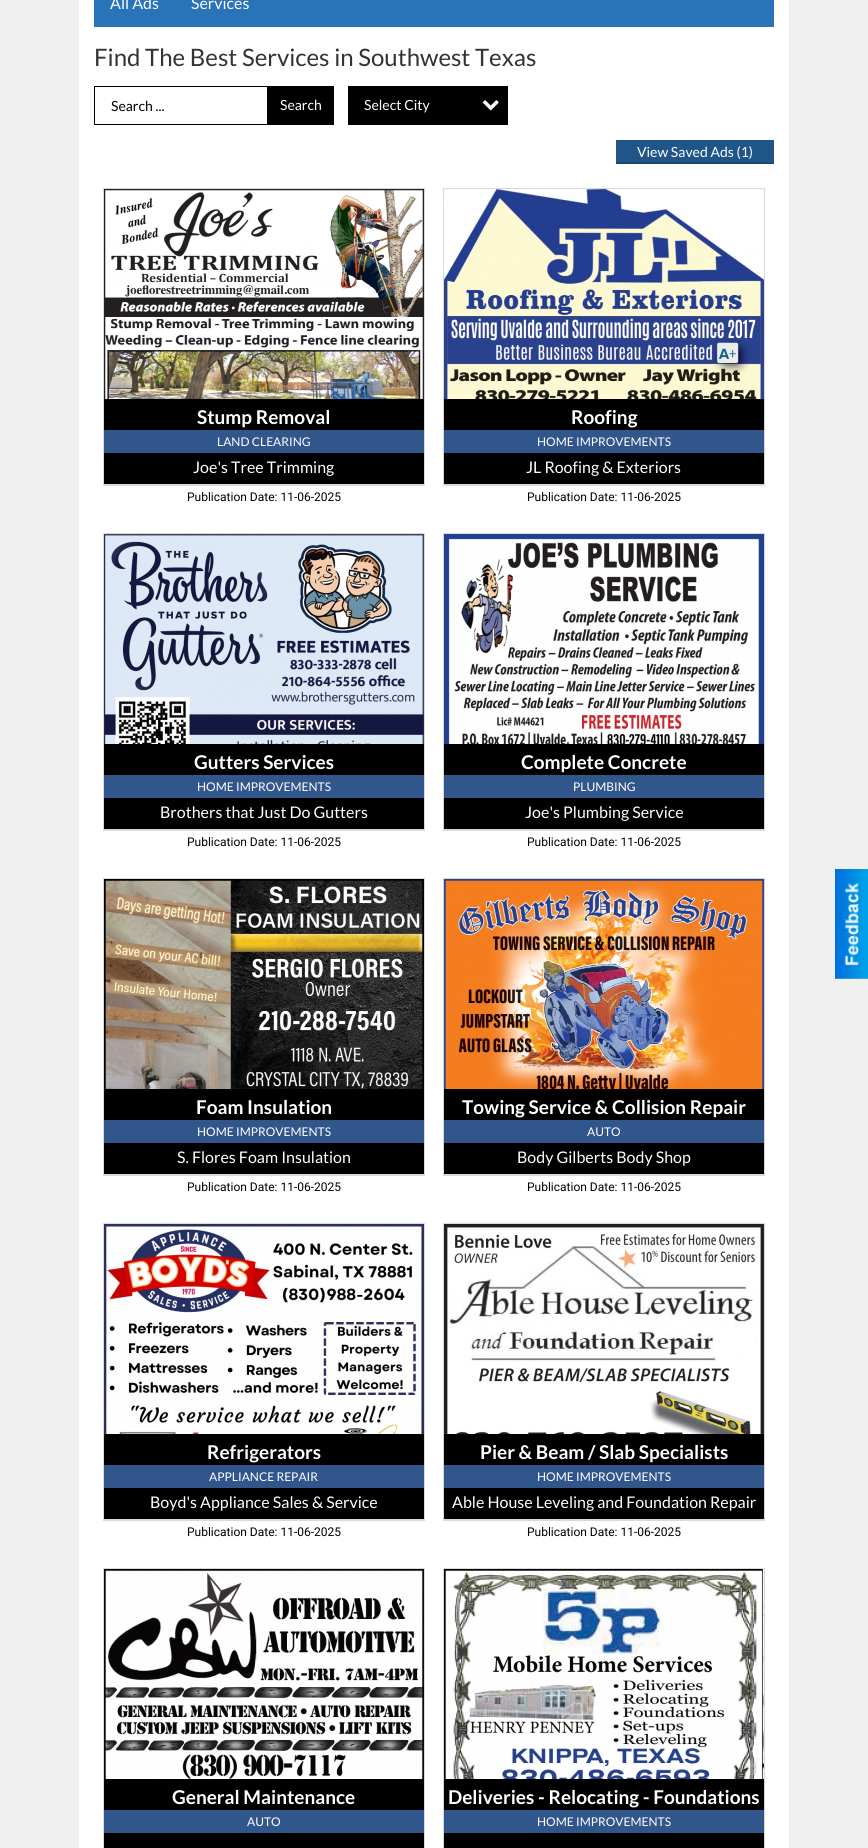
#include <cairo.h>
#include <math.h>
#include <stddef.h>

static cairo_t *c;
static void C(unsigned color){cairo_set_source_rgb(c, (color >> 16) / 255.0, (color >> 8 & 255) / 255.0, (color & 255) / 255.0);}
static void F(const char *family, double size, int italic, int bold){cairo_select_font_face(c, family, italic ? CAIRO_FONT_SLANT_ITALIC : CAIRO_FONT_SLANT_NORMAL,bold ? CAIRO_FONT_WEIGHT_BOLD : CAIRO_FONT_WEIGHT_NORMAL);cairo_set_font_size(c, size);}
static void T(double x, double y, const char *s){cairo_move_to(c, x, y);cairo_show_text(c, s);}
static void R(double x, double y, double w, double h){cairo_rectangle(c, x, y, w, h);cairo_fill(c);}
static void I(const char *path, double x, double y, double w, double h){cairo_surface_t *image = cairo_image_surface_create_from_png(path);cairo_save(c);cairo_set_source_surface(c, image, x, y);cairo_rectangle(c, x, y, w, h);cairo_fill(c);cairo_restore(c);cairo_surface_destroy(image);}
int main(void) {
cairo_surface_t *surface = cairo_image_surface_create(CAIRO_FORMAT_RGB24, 868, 1848);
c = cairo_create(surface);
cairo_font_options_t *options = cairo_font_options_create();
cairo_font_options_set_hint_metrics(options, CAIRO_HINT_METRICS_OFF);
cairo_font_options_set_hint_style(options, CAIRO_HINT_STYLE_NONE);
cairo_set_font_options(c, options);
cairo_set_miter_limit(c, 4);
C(0xf0f0f0);
cairo_paint(c);
C(0xffffff);
R(79,0,710,1848);
C(0x2974b8);
R(94,0,680,27);
F("Lato",16,0,0);
C(0xffffff);
T(110,9,"All Ads");
T(191,9,"Services");
F("Lato",24,0,0);
C(0x333333);
T(94,66,"Find The Best Services in Southwest Texas");
cairo_rectangle(c,94.5,86.5,173,38);
C(0x000000);
cairo_set_line_width(c,1);
cairo_stroke(c);
F("Lato",14,0,0);
T(111,111,"Search ...");
R(268,86,66,39);
C(0xffffff);
T(280,110,"Search");
C(0x000000);
R(348,86,160,39);
C(0xffffff);
T(364,110,"Select City");
I("1.png",482,100,17,11);
C(0x1f5587);
R(616,140,158,22);
C(0x1a4873);
R(616,162,158,2);
C(0xffffff);
T(637,157,"View Saved Ads (1)");
cairo_rectangle(c,103.5,188.5,321,297);
C(0xd9d9d9);
cairo_stroke(c);
R(104,484,320,1);
I("2.png",104,189,320,210);
C(0x000000);
R(104,399,320,85);
F("Lato",19,0,1);
C(0xffffff);
T(197,424,"Stump Removal");
C(0x31568b);
R(104,430,320,23);
F("Lato",12,0,0);
C(0xffffff);
T(217,446,"LAND CLEARING");
F("Lato",16,0,0);
T(193,473,"Joe's Tree Trimming");
F("Roboto",12,0,0);
C(0x000000);
T(187,501,"Publication Date: 11-06-2025");
cairo_rectangle(c,443.5,188.5,321,297);
C(0xd9d9d9);
cairo_stroke(c);
R(444,484,320,1);
I("3.png",444,189,320,210);
C(0x000000);
R(444,399,320,85);
F("Lato",19,0,1);
C(0xffffff);
T(571,424,"Roofing");
C(0x31568b);
R(444,430,320,23);
F("Lato",12,0,0);
C(0xffffff);
T(537,446,"HOME IMPROVEMENTS");
F("Lato",16,0,0);
T(526,473,"JL Roofing & Exteriors");
F("Roboto",12,0,0);
C(0x000000);
T(527,501,"Publication Date: 11-06-2025");
cairo_rectangle(c,103.5,533.5,321,297);
C(0xd9d9d9);
cairo_stroke(c);
R(104,829,320,1);
I("4.png",104,534,320,210);
C(0x000000);
R(104,744,320,85);
F("Lato",19,0,1);
C(0xffffff);
T(194,769,"Gutters Services");
C(0x31568b);
R(104,775,320,23);
F("Lato",12,0,0);
C(0xffffff);
T(197,791,"HOME IMPROVEMENTS");
F("Lato",16,0,0);
T(160,818,"Brothers that Just Do Gutters");
F("Roboto",12,0,0);
C(0x000000);
T(187,846,"Publication Date: 11-06-2025");
cairo_rectangle(c,443.5,533.5,321,297);
C(0xd9d9d9);
cairo_stroke(c);
R(444,829,320,1);
I("5.png",444,534,320,210);
C(0x000000);
R(444,744,320,85);
F("Lato",19,0,1);
C(0xffffff);
T(521,769,"Complete Concrete");
C(0x31568b);
R(444,775,320,23);
F("Lato",12,0,0);
C(0xffffff);
T(573,791,"PLUMBING");
F("Lato",16,0,0);
T(525,818,"Joe's Plumbing Service");
F("Roboto",12,0,0);
C(0x000000);
T(527,846,"Publication Date: 11-06-2025");
cairo_rectangle(c,103.5,878.5,321,297);
C(0xd9d9d9);
cairo_stroke(c);
R(104,1174,320,1);
I("6.png",104,879,320,210);
C(0x000000);
R(104,1089,320,85);
F("Lato",19,0,1);
C(0xffffff);
T(196,1114,"Foam Insulation");
C(0x31568b);
R(104,1120,320,23);
F("Lato",12,0,0);
C(0xffffff);
T(197,1136,"HOME IMPROVEMENTS");
F("Lato",16,0,0);
T(177,1163,"S. Flores Foam Insulation");
F("Roboto",12,0,0);
C(0x000000);
T(187,1191,"Publication Date: 11-06-2025");
cairo_rectangle(c,443.5,878.5,321,297);
C(0xd9d9d9);
cairo_stroke(c);
R(444,1174,320,1);
I("7.png",444,879,320,210);
C(0x000000);
R(444,1089,320,85);
F("Lato",19,0,1);
C(0xffffff);
T(462,1114,"Towing Service & Collision Repair");
C(0x31568b);
R(444,1120,320,23);
F("Lato",12,0,0);
C(0xffffff);
T(587,1136,"AUTO");
F("Lato",16,0,0);
T(517,1163,"Body Gilberts Body Shop");
F("Roboto",12,0,0);
C(0x000000);
T(527,1191,"Publication Date: 11-06-2025");
cairo_rectangle(c,103.5,1223.5,321,297);
C(0xd9d9d9);
cairo_stroke(c);
R(104,1519,320,1);
I("8.png",104,1224,320,210);
C(0x000000);
R(104,1434,320,85);
F("Lato",19,0,1);
C(0xffffff);
T(207,1459,"Refrigerators");
C(0x31568b);
R(104,1465,320,23);
F("Lato",12,0,0);
C(0xffffff);
T(209,1481,"APPLIANCE REPAIR");
F("Lato",16,0,0);
T(150,1508,"Boyd's Appliance Sales & Service");
F("Roboto",12,0,0);
C(0x000000);
T(187,1536,"Publication Date: 11-06-2025");
cairo_rectangle(c,443.5,1223.5,321,297);
C(0xd9d9d9);
cairo_stroke(c);
R(444,1519,320,1);
I("9.png",444,1224,320,210);
C(0x000000);
R(444,1434,320,85);
F("Lato",19,0,1);
C(0xffffff);
T(480,1459,"Pier & Beam / Slab Specialists");
C(0x31568b);
R(444,1465,320,23);
F("Lato",12,0,0);
C(0xffffff);
T(537,1481,"HOME IMPROVEMENTS");
F("Lato",16,0,0);
T(452,1508,"Able House Leveling and Foundation Repair");
F("Roboto",12,0,0);
C(0x000000);
T(527,1536,"Publication Date: 11-06-2025");
cairo_rectangle(c,103.5,1568.5,321,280);
C(0xd9d9d9);
cairo_stroke(c);
I("10.png",104,1569,320,210);
C(0x000000);
R(104,1779,320,69);
F("Lato",19,0,1);
C(0xffffff);
T(172,1804,"General Maintenance");
C(0x31568b);
R(104,1810,320,23);
F("Lato",12,0,0);
C(0xffffff);
T(247,1826,"AUTO");
cairo_rectangle(c,443.5,1568.5,321,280);
C(0xd9d9d9);
cairo_stroke(c);
I("11.png",444,1569,320,210);
C(0x000000);
R(444,1779,320,69);
F("Lato",19,0,1);
C(0xffffff);
T(448,1804,"Deliveries - Relocating - Foundations");
C(0x31568b);
R(444,1810,320,23);
F("Lato",12,0,0);
C(0xffffff);
T(537,1826,"HOME IMPROVEMENTS");
I("12.png",835,869,33,110);
cairo_surface_write_to_png(surface, "o.png");
cairo_font_options_destroy(options);
cairo_destroy(c);
cairo_surface_destroy(surface);
return 0;
}
